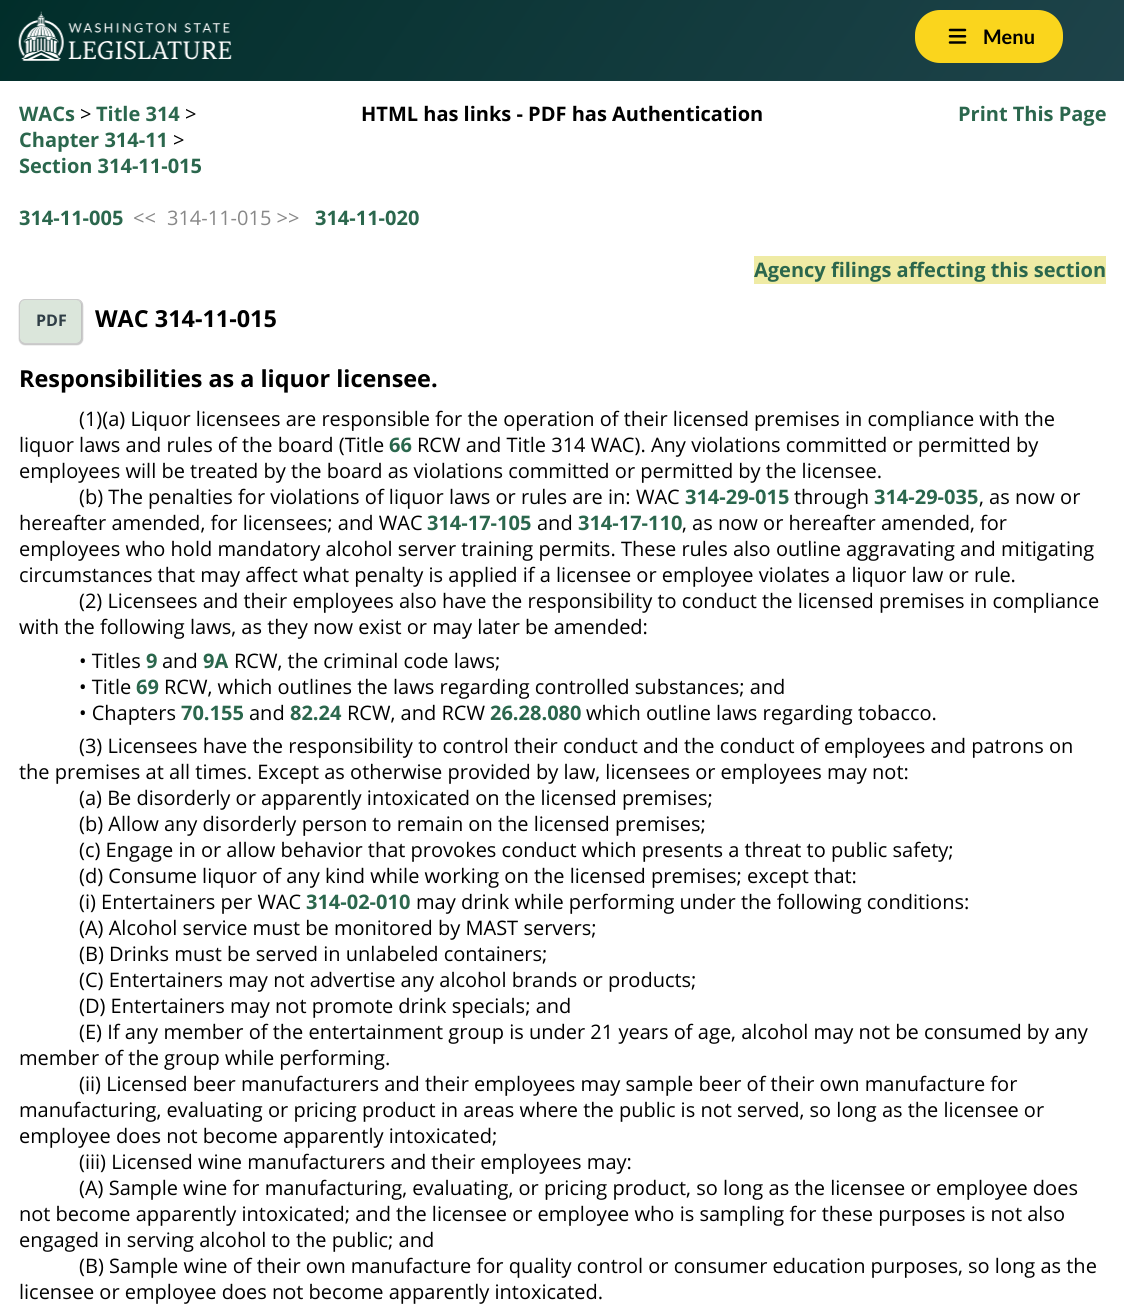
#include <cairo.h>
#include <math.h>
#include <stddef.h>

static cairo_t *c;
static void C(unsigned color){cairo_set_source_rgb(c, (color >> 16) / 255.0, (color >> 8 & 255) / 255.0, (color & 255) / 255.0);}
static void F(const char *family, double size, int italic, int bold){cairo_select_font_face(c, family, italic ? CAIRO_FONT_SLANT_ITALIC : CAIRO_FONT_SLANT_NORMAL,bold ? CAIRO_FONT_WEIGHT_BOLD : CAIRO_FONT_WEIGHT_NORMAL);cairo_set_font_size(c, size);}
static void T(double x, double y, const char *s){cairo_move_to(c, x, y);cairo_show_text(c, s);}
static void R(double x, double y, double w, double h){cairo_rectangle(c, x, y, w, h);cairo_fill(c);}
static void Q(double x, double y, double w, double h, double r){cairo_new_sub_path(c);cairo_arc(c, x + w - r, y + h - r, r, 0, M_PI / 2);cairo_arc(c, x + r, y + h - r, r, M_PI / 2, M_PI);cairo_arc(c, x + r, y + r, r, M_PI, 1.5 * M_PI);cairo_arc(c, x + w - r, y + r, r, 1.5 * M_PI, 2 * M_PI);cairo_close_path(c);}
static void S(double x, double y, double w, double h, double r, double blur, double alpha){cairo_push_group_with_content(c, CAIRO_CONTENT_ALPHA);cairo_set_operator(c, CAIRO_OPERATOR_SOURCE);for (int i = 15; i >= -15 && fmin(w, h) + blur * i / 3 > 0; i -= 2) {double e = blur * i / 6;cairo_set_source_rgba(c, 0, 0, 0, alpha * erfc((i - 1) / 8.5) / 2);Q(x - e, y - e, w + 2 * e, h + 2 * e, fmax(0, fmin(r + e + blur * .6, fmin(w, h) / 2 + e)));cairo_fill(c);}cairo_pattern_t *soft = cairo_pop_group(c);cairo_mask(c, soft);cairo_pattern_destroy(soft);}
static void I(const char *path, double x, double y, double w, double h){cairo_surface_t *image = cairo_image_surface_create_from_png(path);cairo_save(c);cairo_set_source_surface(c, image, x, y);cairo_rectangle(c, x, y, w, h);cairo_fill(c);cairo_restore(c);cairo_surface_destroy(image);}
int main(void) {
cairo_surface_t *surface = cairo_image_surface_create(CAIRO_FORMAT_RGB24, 1124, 1305);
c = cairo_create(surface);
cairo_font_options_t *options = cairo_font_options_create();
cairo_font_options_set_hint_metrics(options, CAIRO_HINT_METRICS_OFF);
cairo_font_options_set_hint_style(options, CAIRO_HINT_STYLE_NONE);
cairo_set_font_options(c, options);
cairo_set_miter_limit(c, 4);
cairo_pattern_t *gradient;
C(0xffffff);
cairo_paint(c);
gradient = cairo_pattern_create_linear(968,314,157,-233);
cairo_pattern_add_color_stop_rgba(gradient,0,0.118,0.263,0.29,1);
cairo_pattern_add_color_stop_rgba(gradient,1,0.004,0.18,0.165,1);
cairo_set_source(c,gradient);
cairo_pattern_destroy(gradient);
R(0,0,1124,81);
I("1.png",18,11,214,50);
C(0xfad51d);
Q(916.5,11.5,145,50,23.5);
cairo_fill_preserve(c);
cairo_set_line_width(c,3);
cairo_stroke(c);
I("2.png",948,28,19,16);
F("Lato",20,0,1);
C(0x000000);
T(983,44,"Menu");
F("Open Sans",20,0,1);
C(0x2b674d);
T(19,121,"WACs");
F("Open Sans",20,0,0);
C(0x000000);
T(80,121,">");
F("Open Sans",20,0,1);
C(0x2b674d);
T(96,121,"Title 314");
F("Open Sans",20,0,0);
C(0x000000);
T(185,121,">");
F("Open Sans",20,0,1);
C(0x2b674d);
T(19,147,"Chapter 314-11");
F("Open Sans",20,0,0);
C(0x000000);
T(173,147,">");
F("Open Sans",20,0,1);
C(0x2b674d);
T(19,173,"Section 314-11-015");
C(0x000000);
T(361,121,"HTML has links - PDF has Authentication");
C(0x2b674d);
T(958,121,"Print This Page");
T(19,225,"314-11-005");
F("Open Sans",20,0,0);
C(0x888888);
T(133,225,"<<");
T(167,225,"314-11-015 >>");
F("Open Sans",20,0,1);
C(0x2b674d);
T(315,225,"314-11-020");
C(0xefeba5);
R(754,256,352,28);
C(0x2b674d);
T(754,277,"Agency filings affecting this section");
C(0x333333);
S(19,300,64,45,6,.5,.3);
C(0xdbe6db);
Q(20,300,61,43,5);
cairo_fill(c);
Q(19.5,299.5,63,44,5.5);
C(0xcccccc);
cairo_set_line_width(c,1);
cairo_stroke(c);
F("Open Sans",16,0,1);
C(0x2f3e46);
T(36,326,"PDF");
F("Open Sans",23.4,0,1);
C(0x000000);
T(95,327,"WAC 314-11-015");
T(19,387,"Responsibilities as a liquor licensee.");
F("Open Sans",20,0,0);
T(79,426,"(1)(a) Liquor licensees are responsible for the operation of their licensed premises in compliance with the");
T(19,452,"liquor laws and rules of the board (Title");
F("Open Sans",20,0,1);
C(0x2b674d);
T(389,452,"66");
F("Open Sans",20,0,0);
C(0x000000);
T(417,452,"RCW and Title 314 WAC). Any violations committed or permitted by");
T(19,478,"employees will be treated by the board as violations committed or permitted by the licensee.");
T(79,504,"(b) The penalties for violations of liquor laws or rules are in: WAC");
F("Open Sans",20,0,1);
C(0x2b674d);
T(685,504,"314-29-015");
F("Open Sans",20,0,0);
C(0x000000);
T(794,504,"through");
F("Open Sans",20,0,1);
C(0x2b674d);
T(874,504,"314-29-035");
F("Open Sans",20,0,0);
C(0x000000);
T(979,504,", as now or");
T(19,530,"hereafter amended, for licensees; and WAC");
F("Open Sans",20,0,1);
C(0x2b674d);
T(427,530,"314-17-105");
F("Open Sans",20,0,0);
C(0x000000);
T(537,530,"and");
F("Open Sans",20,0,1);
C(0x2b674d);
T(578,530,"314-17-110");
F("Open Sans",20,0,0);
C(0x000000);
T(682,530,", as now or hereafter amended, for");
T(19,556,"employees who hold mandatory alcohol server training permits. These rules also outline aggravating and mitigating");
T(19,582,"circumstances that may affect what penalty is applied if a licensee or employee violates a liquor law or rule.");
T(79,608,"(2) Licensees and their employees also have the responsibility to conduct the licensed premises in compliance");
T(19,634,"with the following laws, as they now exist or may later be amended:");
T(79,668,"• Titles");
F("Open Sans",20,0,1);
C(0x2b674d);
T(146,668,"9");
F("Open Sans",20,0,0);
C(0x000000);
T(162,668,"and");
F("Open Sans",20,0,1);
C(0x2b674d);
T(203,668,"9A");
F("Open Sans",20,0,0);
C(0x000000);
T(234,668,"RCW, the criminal code laws;");
T(79,694,"• Title");
F("Open Sans",20,0,1);
C(0x2b674d);
T(136,694,"69");
F("Open Sans",20,0,0);
C(0x000000);
T(164,694,"RCW, which outlines the laws regarding controlled substances; and");
T(79,720,"• Chapters");
F("Open Sans",20,0,1);
C(0x2b674d);
T(181,720,"70.155");
F("Open Sans",20,0,0);
C(0x000000);
T(249,720,"and");
F("Open Sans",20,0,1);
C(0x2b674d);
T(290,720,"82.24");
F("Open Sans",20,0,0);
C(0x000000);
T(347,720,"RCW, and RCW");
F("Open Sans",20,0,1);
C(0x2b674d);
T(490,720,"26.28.080");
F("Open Sans",20,0,0);
C(0x000000);
T(586,720,"which outline laws regarding tobacco.");
T(79,753,"(3) Licensees have the responsibility to control their conduct and the conduct of employees and patrons on");
T(19,779,"the premises at all times. Except as otherwise provided by law, licensees or employees may not:");
T(79,805,"(a) Be disorderly or apparently intoxicated on the licensed premises;");
T(79,831,"(b) Allow any disorderly person to remain on the licensed premises;");
T(79,857,"(c) Engage in or allow behavior that provokes conduct which presents a threat to public safety;");
T(79,883,"(d) Consume liquor of any kind while working on the licensed premises; except that:");
T(79,909,"(i) Entertainers per WAC");
F("Open Sans",20,0,1);
C(0x2b674d);
T(306,909,"314-02-010");
F("Open Sans",20,0,0);
C(0x000000);
T(416,909,"may drink while performing under the following conditions:");
T(79,935,"(A) Alcohol service must be monitored by MAST servers;");
T(79,961,"(B) Drinks must be served in unlabeled containers;");
T(79,987,"(C) Entertainers may not advertise any alcohol brands or products;");
T(79,1013,"(D) Entertainers may not promote drink specials; and");
T(79,1039,"(E) If any member of the entertainment group is under 21 years of age, alcohol may not be consumed by any");
T(19,1065,"member of the group while performing.");
T(79,1091,"(ii) Licensed beer manufacturers and their employees may sample beer of their own manufacture for");
T(19,1117,"manufacturing, evaluating or pricing product in areas where the public is not served, so long as the licensee or");
T(19,1143,"employee does not become apparently intoxicated;");
T(79,1169,"(iii) Licensed wine manufacturers and their employees may:");
T(79,1195,"(A) Sample wine for manufacturing, evaluating, or pricing product, so long as the licensee or employee does");
T(19,1221,"not become apparently intoxicated; and the licensee or employee who is sampling for these purposes is not also");
T(19,1247,"engaged in serving alcohol to the public; and");
T(79,1273,"(B) Sample wine of their own manufacture for quality control or consumer education purposes, so long as the");
T(19,1299,"licensee or employee does not become apparently intoxicated.");
cairo_surface_write_to_png(surface, "o.png");
cairo_font_options_destroy(options);
cairo_destroy(c);
cairo_surface_destroy(surface);
return 0;
}
